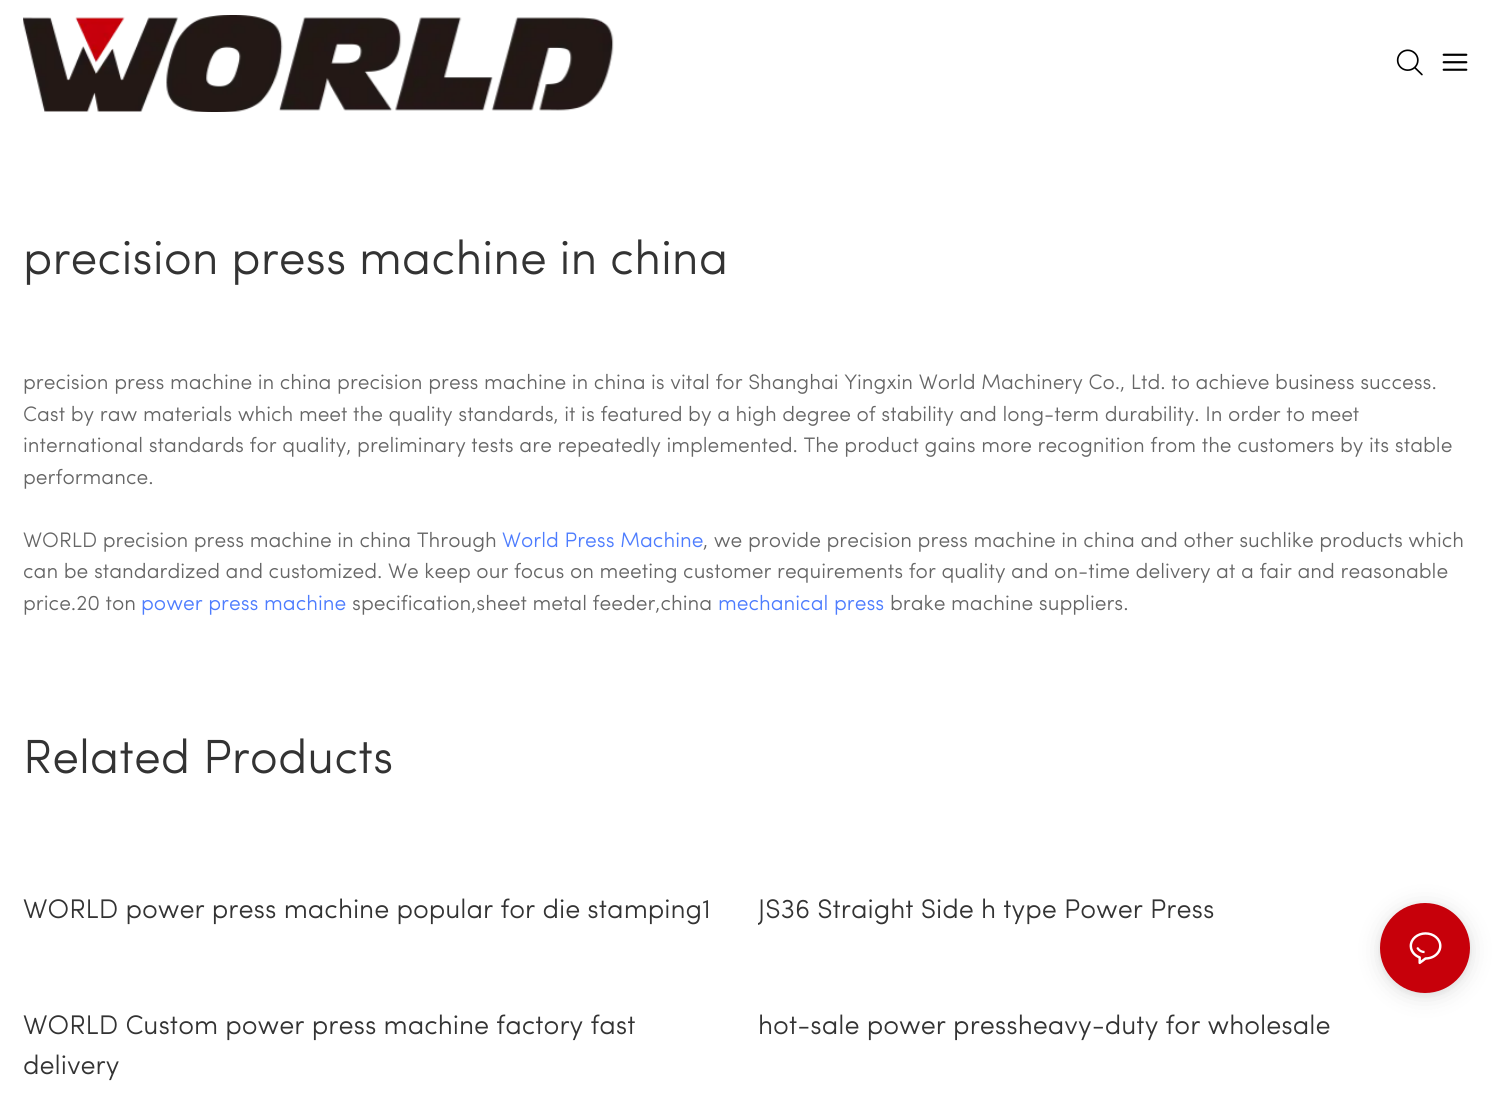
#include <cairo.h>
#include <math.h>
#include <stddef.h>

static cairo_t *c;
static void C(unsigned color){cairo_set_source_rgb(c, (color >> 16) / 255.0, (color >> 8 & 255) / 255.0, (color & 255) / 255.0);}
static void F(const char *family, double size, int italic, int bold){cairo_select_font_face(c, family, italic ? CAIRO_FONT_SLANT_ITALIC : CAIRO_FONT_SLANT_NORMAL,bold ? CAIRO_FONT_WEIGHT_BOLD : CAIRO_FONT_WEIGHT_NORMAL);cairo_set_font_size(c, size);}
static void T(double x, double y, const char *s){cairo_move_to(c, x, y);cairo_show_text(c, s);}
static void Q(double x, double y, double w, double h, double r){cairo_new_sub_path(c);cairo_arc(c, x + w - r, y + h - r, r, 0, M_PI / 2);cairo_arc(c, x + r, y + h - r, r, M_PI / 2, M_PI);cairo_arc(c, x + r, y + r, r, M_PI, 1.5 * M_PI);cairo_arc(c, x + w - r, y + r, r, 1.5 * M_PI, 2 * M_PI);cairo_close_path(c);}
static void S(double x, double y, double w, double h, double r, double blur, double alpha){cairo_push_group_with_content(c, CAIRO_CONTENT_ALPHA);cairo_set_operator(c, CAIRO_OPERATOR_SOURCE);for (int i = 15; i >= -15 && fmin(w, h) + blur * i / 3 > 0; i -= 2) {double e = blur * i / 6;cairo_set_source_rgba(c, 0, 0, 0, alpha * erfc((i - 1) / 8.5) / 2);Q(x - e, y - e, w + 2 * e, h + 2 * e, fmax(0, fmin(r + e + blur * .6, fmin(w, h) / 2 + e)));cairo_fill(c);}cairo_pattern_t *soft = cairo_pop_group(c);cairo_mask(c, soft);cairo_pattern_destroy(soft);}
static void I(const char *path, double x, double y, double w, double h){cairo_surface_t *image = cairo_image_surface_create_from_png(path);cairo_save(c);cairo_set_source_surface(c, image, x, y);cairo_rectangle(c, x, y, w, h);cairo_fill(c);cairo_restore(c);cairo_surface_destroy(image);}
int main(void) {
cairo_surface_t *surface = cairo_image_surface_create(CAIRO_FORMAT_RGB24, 1492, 1104);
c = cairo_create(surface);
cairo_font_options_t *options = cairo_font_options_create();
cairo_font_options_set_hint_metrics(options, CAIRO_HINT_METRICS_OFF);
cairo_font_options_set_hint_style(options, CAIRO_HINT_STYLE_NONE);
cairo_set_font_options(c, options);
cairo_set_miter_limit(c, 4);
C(0xffffff);
cairo_paint(c);
I("1.png",23,15,591,97);
I("2.png",1396,49,27,27);
I("3.png",1442,53,26,18);
F("Sofia Light",48,0,0);
C(0x333333);
T(23,274,"precision press machine in china");
F("Sofia Light",21,0,0);
C(0x666666);
T(23,389,"precision press machine in china precision press machine in china is vital for Shanghai Yingxin World Machinery Co., Ltd. to achieve business success.");
T(23,421,"Cast by raw materials which meet the quality standards, it is featured by a high degree of stability and long-term durability. In order to meet");
T(23,452,"international standards for quality, preliminary tests are repeatedly implemented. The product gains more recognition from the customers by its stable");
T(23,484,"performance.");
T(23,547,"WORLD precision press machine in china Through");
C(0x4d7cfe);
T(502,547,"World Press Machine");
C(0x666666);
T(703,547,", we provide precision press machine in china and other suchlike products which");
T(23,578,"can be standardized and customized. We keep our focus on meeting customer requirements for quality and on-time delivery at a fair and reasonable");
T(23,610,"price.20 ton");
C(0x4d7cfe);
T(141,610,"power press machine");
C(0x666666);
T(352,610,"specification,sheet metal feeder,china");
C(0x4d7cfe);
T(718,610,"mechanical press");
C(0x666666);
T(890,610,"brake machine suppliers.");
F("Sofia Light",48,0,0);
C(0x333333);
T(23,773,"Related Products");
F("Sofia Light",27,0,0);
T(23,918,"WORLD power press machine popular for die stamping1");
cairo_save(c);
cairo_rectangle(c,758,893,712,40);
cairo_clip(c);
T(758,918,"JS36 Straight Side h type Power Press");
cairo_restore(c);
T(23,1034,"WORLD Custom power press machine factory fast");
T(23,1074,"delivery");
T(758,1034,"hot-sale power pressheavy-duty for wholesale");
C(0x000000);
S(1380,906,90,90,45,12,.12);
S(1380,905,90,90,45,3,.06);
C(0xc7000a);
cairo_arc(c,1425,948,45,0,2 * M_PI);
cairo_fill(c);
I("4.png",1409,932,33,33);
cairo_surface_write_to_png(surface, "o.png");
cairo_font_options_destroy(options);
cairo_destroy(c);
cairo_surface_destroy(surface);
return 0;
}
